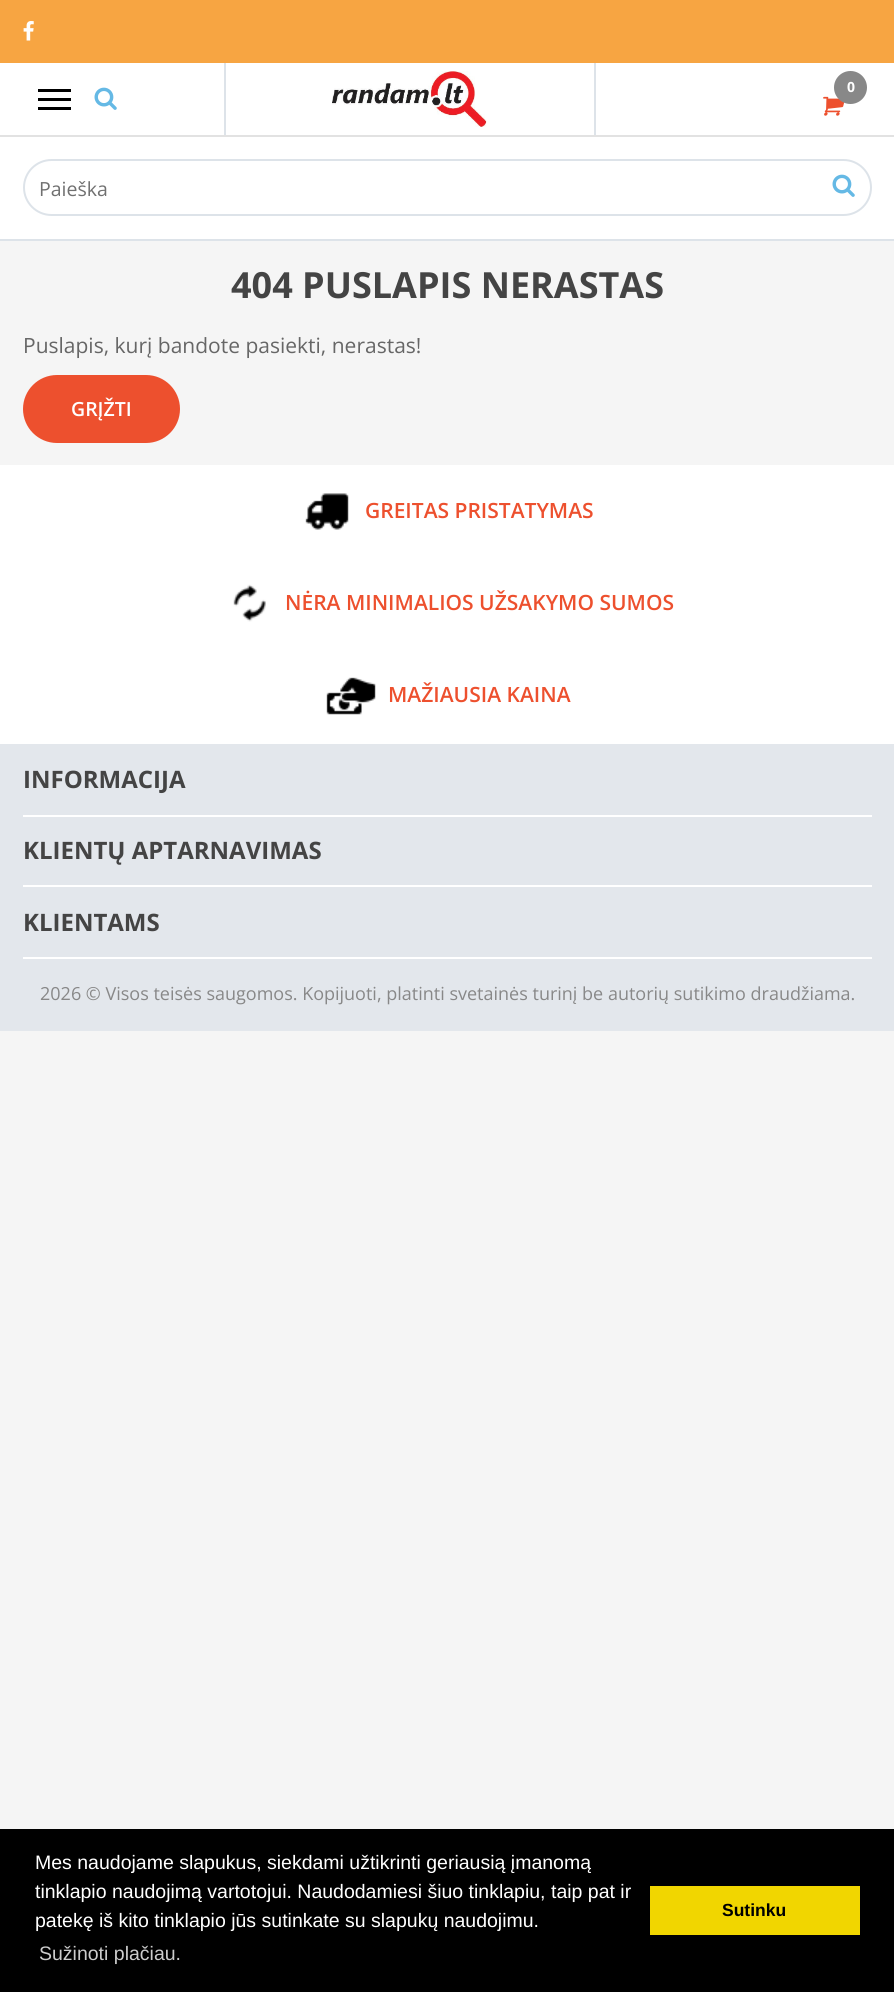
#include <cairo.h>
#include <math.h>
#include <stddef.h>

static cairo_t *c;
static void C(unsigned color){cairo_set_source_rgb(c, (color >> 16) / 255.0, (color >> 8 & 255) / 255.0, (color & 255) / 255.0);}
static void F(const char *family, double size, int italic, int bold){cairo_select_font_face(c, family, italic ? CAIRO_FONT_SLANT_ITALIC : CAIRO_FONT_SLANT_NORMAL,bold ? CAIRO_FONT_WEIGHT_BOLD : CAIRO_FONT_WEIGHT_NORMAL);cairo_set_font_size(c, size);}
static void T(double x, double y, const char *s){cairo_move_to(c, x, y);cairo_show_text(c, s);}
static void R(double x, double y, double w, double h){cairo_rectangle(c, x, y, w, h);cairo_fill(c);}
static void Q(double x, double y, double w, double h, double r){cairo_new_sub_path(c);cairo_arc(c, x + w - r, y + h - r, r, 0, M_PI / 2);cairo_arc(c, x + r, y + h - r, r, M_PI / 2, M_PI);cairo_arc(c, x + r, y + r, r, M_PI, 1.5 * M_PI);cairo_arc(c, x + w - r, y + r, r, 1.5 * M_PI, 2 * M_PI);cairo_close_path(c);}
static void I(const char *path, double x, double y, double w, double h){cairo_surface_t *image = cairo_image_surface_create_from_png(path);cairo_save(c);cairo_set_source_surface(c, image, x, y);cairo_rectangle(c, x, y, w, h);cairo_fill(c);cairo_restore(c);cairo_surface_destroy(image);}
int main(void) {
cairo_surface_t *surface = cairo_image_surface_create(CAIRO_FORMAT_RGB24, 894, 1992);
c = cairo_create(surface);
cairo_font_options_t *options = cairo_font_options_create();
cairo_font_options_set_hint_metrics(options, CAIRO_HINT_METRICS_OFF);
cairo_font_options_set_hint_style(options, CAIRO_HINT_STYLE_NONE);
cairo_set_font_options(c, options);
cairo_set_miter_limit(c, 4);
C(0xf5f5f5);
cairo_paint(c);
C(0xf7a542);
R(0,0,894,63);
I("1.png",23,21,11,20);
C(0xffffff);
R(0,63,894,176);
C(0xdde3e9);
R(0,239,894,2);
R(594,63,2,72);
R(224,63,2,72);
I("2.png",332,71,155,56);
C(0x000000);
R(38,89,33,3);
R(38,98,33,3);
R(38,107,33,3);
I("3.png",94,87,23,23);
I("4.png",823,96,22,20);
C(0x888888);
cairo_arc(c,850.5,87.5,16.5,0,2 * M_PI);
cairo_fill(c);
F("Open Sans",14,0,1);
C(0xffffff);
T(847,92,"0");
C(0xe2e2e2);
R(0,135,894,2);
Q(24,160,847,55,27.5);
C(0xdde3e9);
cairo_stroke(c);
F("Open Sans",19.5,0,0);
C(0x707070);
T(39,196,"Paieška");
I("3.png",832,174,23,23);
F("Open Sans",36,0,1);
C(0x444444);
T(231,298,"404 PUSLAPIS NERASTAS");
F("Open Sans",21,0,0);
C(0x666666);
T(23,353,"Puslapis, kurį bandote pasiekti, nerastas!");
C(0xed502e);
Q(24.5,376.5,154,65,32.5);
cairo_fill_preserve(c);
cairo_set_line_width(c,3);
cairo_stroke(c);
F("Open Sans SemiBold",19.5,0,0);
C(0xffffff);
T(71,416,"GRĮŽTI");
R(0,465,894,279);
I("5.png",305,493,44,37);
F("Open Sans SemiBold",21,0,0);
C(0xed502e);
T(365,518,"GREITAS PRISTATYMAS");
I("6.png",233,584,33,38);
T(285,610,"NĖRA MINIMALIOS UŽSAKYMO SUMOS");
I("7.png",326,677,50,38);
T(388,702,"MAŽIAUSIA KAINA");
C(0xe3e7ec);
R(0,744,894,287);
C(0xffffff);
R(23,815,849,2);
F("Open Sans",24,0,1);
C(0x444444);
T(23,788,"INFORMACIJA");
C(0xffffff);
R(23,885,849,2);
C(0x444444);
T(23,859,"KLIENTŲ APTARNAVIMAS");
T(23,931,"KLIENTAMS");
C(0xffffff);
R(23,957,849,2);
F("Open Sans",18,0,0);
C(0x888888);
T(40,1000,"2026 © Visos teisės saugomos. Kopijuoti, platinti svetainės turinį be autorių sutikimo draudžiama.");
C(0x000000);
R(0,1829,894,163);
F("Liberation Sans",19.5,0,0);
C(0xffffff);
T(35,1869,"Mes naudojame slapukus, siekdami užtikrinti geriausią įmanomą");
T(35,1898,"tinklapio naudojimą vartotojui. Naudodamiesi šiuo tinklapiu, taip pat ir");
T(35,1927,"patekę iš kito tinklapio jūs sutinkate su slapukų naudojimu.");
C(0xcccccc);
T(39,1960,"Sužinoti plačiau.");
C(0xf1d600);
R(650,1886,210,49);
F("Liberation Sans",17.5,0,1);
C(0x000000);
T(722,1916,"Sutinku");
cairo_surface_write_to_png(surface, "o.png");
cairo_font_options_destroy(options);
cairo_destroy(c);
cairo_surface_destroy(surface);
return 0;
}
